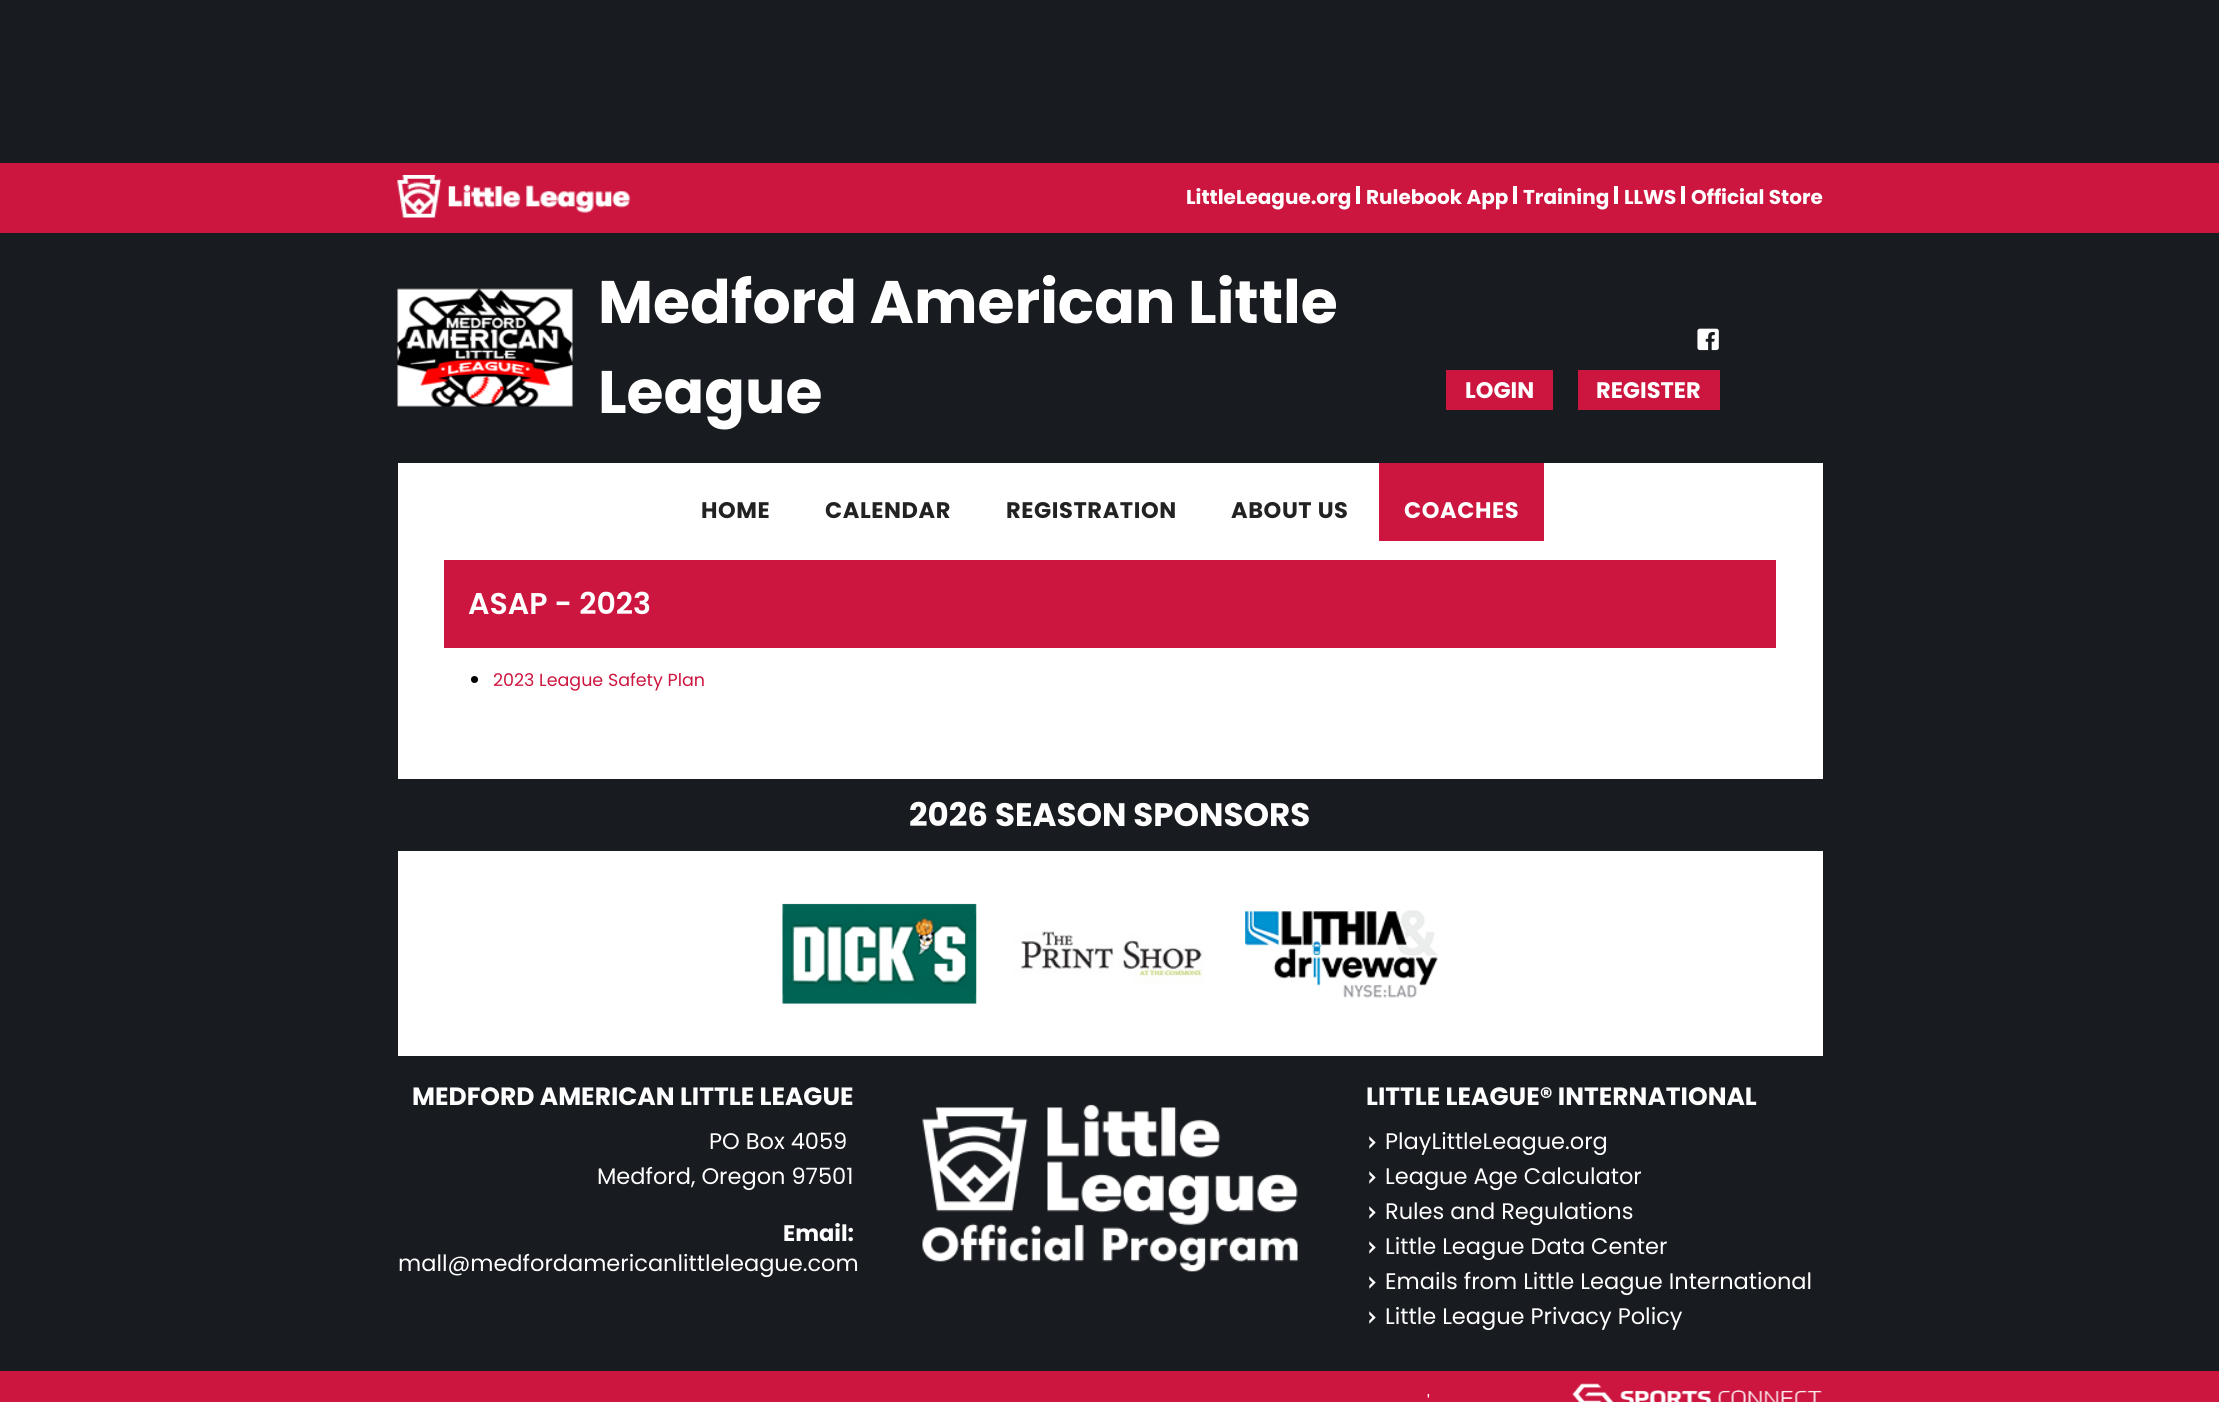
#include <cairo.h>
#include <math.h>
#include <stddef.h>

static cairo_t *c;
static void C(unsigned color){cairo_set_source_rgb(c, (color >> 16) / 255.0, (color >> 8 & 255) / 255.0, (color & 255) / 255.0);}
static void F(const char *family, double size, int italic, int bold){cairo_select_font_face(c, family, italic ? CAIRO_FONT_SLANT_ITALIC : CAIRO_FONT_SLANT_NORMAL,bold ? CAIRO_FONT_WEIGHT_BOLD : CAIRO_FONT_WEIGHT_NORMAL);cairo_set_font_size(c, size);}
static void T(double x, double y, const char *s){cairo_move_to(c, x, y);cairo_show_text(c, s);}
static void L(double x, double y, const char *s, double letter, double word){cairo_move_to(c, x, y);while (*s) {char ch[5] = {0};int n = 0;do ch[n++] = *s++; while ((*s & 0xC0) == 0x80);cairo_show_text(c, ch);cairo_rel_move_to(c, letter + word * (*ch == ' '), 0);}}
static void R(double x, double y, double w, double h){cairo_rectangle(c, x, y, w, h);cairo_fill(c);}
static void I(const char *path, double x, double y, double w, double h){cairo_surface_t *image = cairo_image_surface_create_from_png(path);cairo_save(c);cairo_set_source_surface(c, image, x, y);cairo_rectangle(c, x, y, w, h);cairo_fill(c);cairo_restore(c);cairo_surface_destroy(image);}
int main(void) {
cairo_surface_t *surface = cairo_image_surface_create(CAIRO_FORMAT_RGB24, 2219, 1402);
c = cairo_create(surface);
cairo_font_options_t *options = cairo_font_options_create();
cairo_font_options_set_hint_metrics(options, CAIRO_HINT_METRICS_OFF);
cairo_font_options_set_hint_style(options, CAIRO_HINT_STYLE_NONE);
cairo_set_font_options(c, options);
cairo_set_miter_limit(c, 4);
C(0x181b1f);
cairo_paint(c);
C(0xcd163f);
R(0,163,2219,70);
I("1.png",397,175,234,43);
F("Poppins",20,0,1);
C(0xffffff);
T(1186,204,"LittleLeague.org");
R(1356,186,4,18);
T(1366,204,"Rulebook App");
R(1513,186,4,18);
T(1523,204,"Training");
R(1614,186,4,18);
T(1624,204,"LLWS");
R(1681,186,4,18);
T(1691,204,"Official Store");
I("2.png",397,288,176,119);
F("Poppins",60,0,1);
T(598,323,"Medford American Little");
T(598,413,"League");
I("3.png",1697,328,22,23);
C(0xcd163f);
R(1446,370,107,40);
F("Poppins",22.5,0,1);
C(0xffffff);
T(1465,398,"LOGIN");
C(0xcd163f);
R(1578,370,142,40);
C(0xffffff);
T(1596,398,"REGISTER");
R(398,463,1425,316);
C(0x222222);
L(701,518,"HOME",.6,0);
L(825,518,"CALENDAR",.6,0);
L(1006,518,"REGISTRATION",.6,0);
L(1231,518,"ABOUT US",.6,0);
C(0xcd163f);
R(1379,463,165,78);
C(0xffffff);
L(1404,518,"COACHES",.6,0);
C(0xcd163f);
R(444,560,1332,88);
F("Poppins SemiBold",30,0,0);
C(0xffffff);
T(468,614,"ASAP - 2023");
C(0x000000);
cairo_new_path(c);
cairo_arc(c,474.5,679.5,3.5,0,2 * M_PI);
cairo_fill(c);
F("Poppins",17.5,0,0);
C(0xcd163f);
T(493,686,"2023 League Safety Plan");
F("Poppins",32.5,0,1);
C(0xffffff);
T(909,826,"2026 SEASON SPONSORS");
R(398,851,1425,205);
I("4.png",782,903,195,101);
I("5.png",1014,931,190,53);
I("6.png",1245,910,193,88);
F("Poppins",25,0,1);
T(412,1105,"MEDFORD AMERICAN LITTLE LEAGUE");
F("Poppins",22.5,0,0);
T(709,1149,"PO Box 4059");
T(597,1184,"Medford, Oregon 97501");
F("Poppins",22.5,0,1);
T(783,1241,"Email:");
F("Poppins",22.5,0,0);
T(398,1271,"mall@medfordamericanlittleleague.com");
I("7.png",922,1104,376,168);
F("Poppins",25,0,1);
T(1366,1105,"LITTLE LEAGUE® INTERNATIONAL");
I("8.png",1369,1136,7,13);
F("Poppins",22.5,0,0);
T(1385,1149,"PlayLittleLeague.org");
I("8.png",1369,1171,7,13);
T(1385,1184,"League Age Calculator");
I("8.png",1369,1206,7,13);
T(1385,1219,"Rules and Regulations");
I("8.png",1369,1241,7,13);
T(1385,1254,"Little League Data Center");
I("8.png",1369,1276,7,13);
T(1385,1289,"Emails from Little League International");
I("8.png",1369,1311,7,13);
T(1385,1324,"Little League Privacy Policy");
C(0xcd163f);
R(0,1371,2219,31);
F("Poppins",17.5,0,0);
C(0xffffff);
T(1427,1408,"'");
I("9.png",1572,1383,250,19);
cairo_surface_write_to_png(surface, "o.png");
cairo_font_options_destroy(options);
cairo_destroy(c);
cairo_surface_destroy(surface);
return 0;
}
